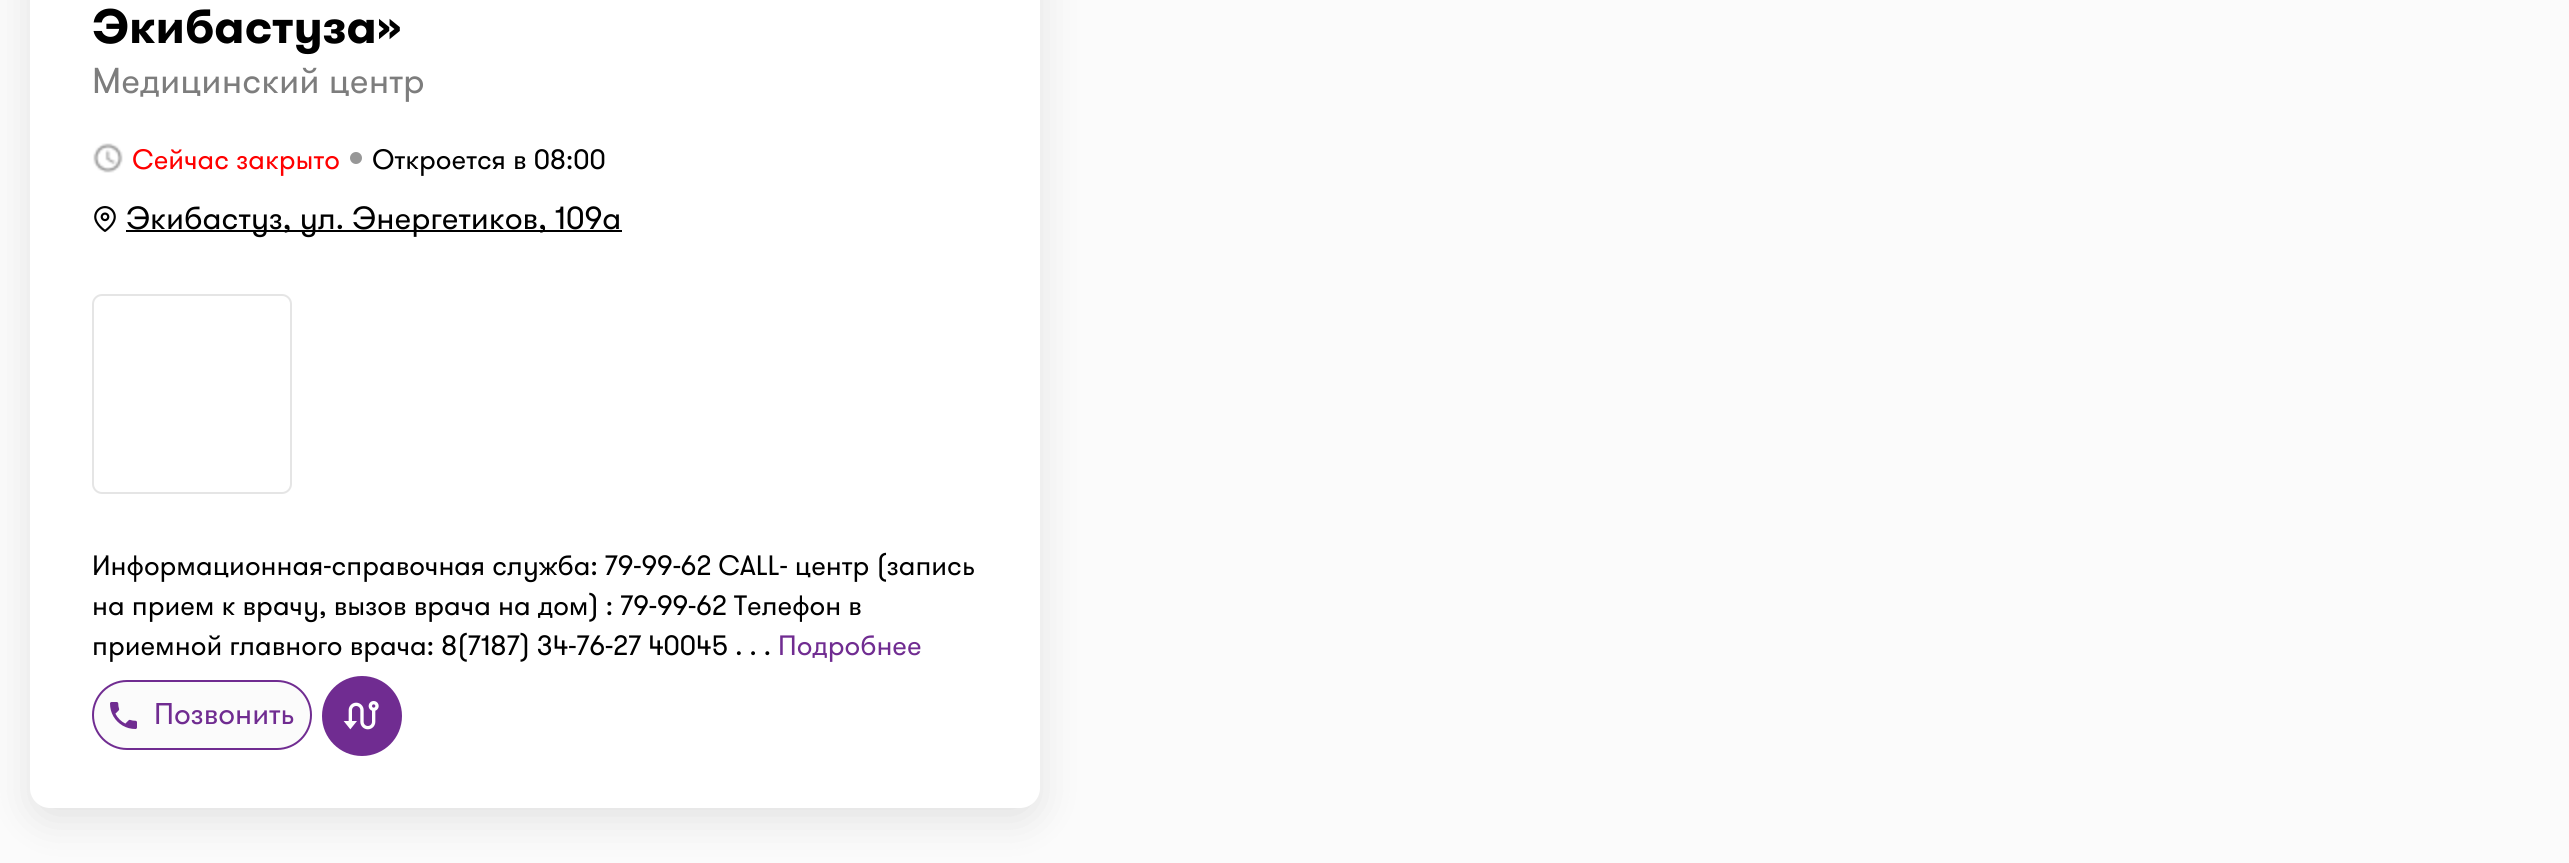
#include <cairo.h>
#include <math.h>
#include <stddef.h>

static cairo_t *c;
static void C(unsigned color){cairo_set_source_rgb(c, (color >> 16) / 255.0, (color >> 8 & 255) / 255.0, (color & 255) / 255.0);}
static void F(const char *family, double size, int italic, int bold){cairo_select_font_face(c, family, italic ? CAIRO_FONT_SLANT_ITALIC : CAIRO_FONT_SLANT_NORMAL,bold ? CAIRO_FONT_WEIGHT_BOLD : CAIRO_FONT_WEIGHT_NORMAL);cairo_set_font_size(c, size);}
static void T(double x, double y, const char *s){cairo_move_to(c, x, y);cairo_show_text(c, s);}
static void R(double x, double y, double w, double h){cairo_rectangle(c, x, y, w, h);cairo_fill(c);}
static void Q(double x, double y, double w, double h, double r){cairo_new_sub_path(c);cairo_arc(c, x + w - r, y + h - r, r, 0, M_PI / 2);cairo_arc(c, x + r, y + h - r, r, M_PI / 2, M_PI);cairo_arc(c, x + r, y + r, r, M_PI, 1.5 * M_PI);cairo_arc(c, x + w - r, y + r, r, 1.5 * M_PI, 2 * M_PI);cairo_close_path(c);}
static void S(double x, double y, double w, double h, double r, double blur, double alpha){cairo_push_group_with_content(c, CAIRO_CONTENT_ALPHA);cairo_set_operator(c, CAIRO_OPERATOR_SOURCE);for (int i = 15; i >= -15 && fmin(w, h) + blur * i / 3 > 0; i -= 2) {double e = blur * i / 6;cairo_set_source_rgba(c, 0, 0, 0, alpha * erfc((i - 1) / 8.5) / 2);Q(x - e, y - e, w + 2 * e, h + 2 * e, fmax(0, fmin(r + e + blur * .6, fmin(w, h) / 2 + e)));cairo_fill(c);}cairo_pattern_t *soft = cairo_pop_group(c);cairo_mask(c, soft);cairo_pattern_destroy(soft);}
static void I(const char *path, double x, double y, double w, double h){cairo_surface_t *image = cairo_image_surface_create_from_png(path);cairo_save(c);cairo_set_source_surface(c, image, x, y);cairo_rectangle(c, x, y, w, h);cairo_fill(c);cairo_restore(c);cairo_surface_destroy(image);}
int main(void) {
cairo_surface_t *surface = cairo_image_surface_create(CAIRO_FORMAT_RGB24, 2569, 863);
c = cairo_create(surface);
cairo_font_options_t *options = cairo_font_options_create();
cairo_font_options_set_hint_metrics(options, CAIRO_HINT_METRICS_OFF);
cairo_font_options_set_hint_style(options, CAIRO_HINT_STYLE_NONE);
cairo_set_font_options(c, options);
cairo_set_miter_limit(c, 4);
C(0xfbfbfb);
cairo_paint(c);
C(0x000000);
S(30,-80,1010,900,20,20,.1);
C(0xffffff);
Q(30,-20,1010,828,20);
cairo_fill(c);
F("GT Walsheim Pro",48,0,1);
C(0x000000);
T(92,43,"Экибастуза»");
F("GT Walsheim Pro",36,0,0);
C(0x7d7d7d);
T(92,93,"Медицинский центр");
I("1.png",93,143,30,30);
F("GT Walsheim Pro",28,0,0);
C(0xff0000);
T(132,169,"Сейчас закрыто");
C(0x979797);
cairo_new_path(c);
cairo_arc(c,356,158,6,0,2 * M_PI);
cairo_fill(c);
C(0x000000);
T(372,169,"Откроется в 08:00");
I("2.png",94,206,22,26);
R(126,230,496,2);
F("GT Walsheim Pro",32,0,0);
T(126,229,"Экибастуз, ул. Энергетиков, 109а");
Q(93,295,198,198,9);
C(0xe5e5e5);
cairo_stroke(c);
F("GT Walsheim Pro",28,0,0);
C(0x000000);
T(92,575,"Информационная-справочная служба: 79-99-62 CALL- центр (запись");
T(92,615,"на прием к врачу, вызов врача на дом) : 79-99-62 Телефон в");
T(92,655,"приемной главного врача: 8(7187) 34-76-27 40045 . . .");
C(0x702c91);
T(778,655,"Подробнее");
C(0xfbfbfb);
Q(93,681,218,68,34);
cairo_fill_preserve(c);
C(0x702c91);
cairo_stroke(c);
I("3.png",110,702,27,27);
F("GT Walsheim Pro",30,0,0);
T(154,724,"Позвонить");
cairo_new_path(c);
cairo_arc(c,362,716,40,0,2 * M_PI);
cairo_fill(c);
I("4.png",343,701,36,29);
cairo_surface_write_to_png(surface, "o.png");
cairo_font_options_destroy(options);
cairo_destroy(c);
cairo_surface_destroy(surface);
return 0;
}
